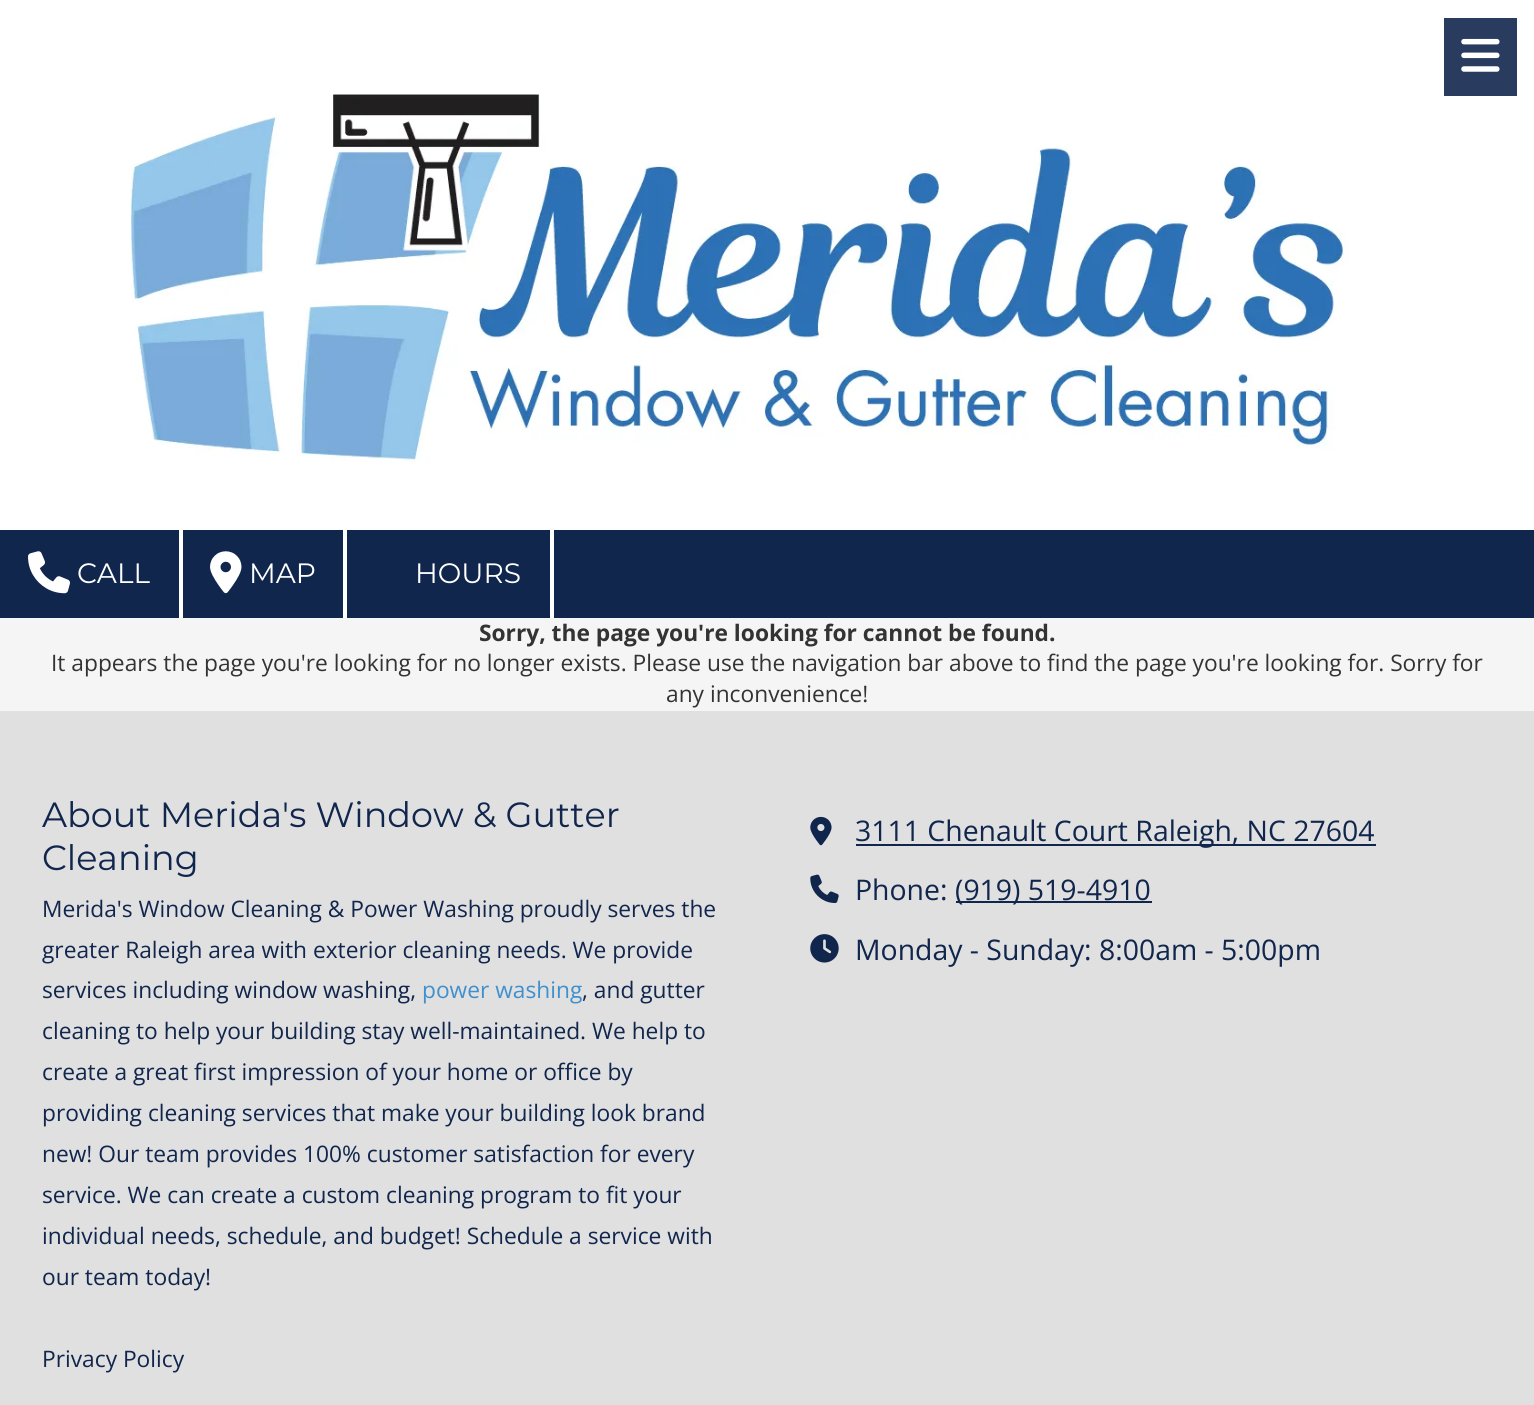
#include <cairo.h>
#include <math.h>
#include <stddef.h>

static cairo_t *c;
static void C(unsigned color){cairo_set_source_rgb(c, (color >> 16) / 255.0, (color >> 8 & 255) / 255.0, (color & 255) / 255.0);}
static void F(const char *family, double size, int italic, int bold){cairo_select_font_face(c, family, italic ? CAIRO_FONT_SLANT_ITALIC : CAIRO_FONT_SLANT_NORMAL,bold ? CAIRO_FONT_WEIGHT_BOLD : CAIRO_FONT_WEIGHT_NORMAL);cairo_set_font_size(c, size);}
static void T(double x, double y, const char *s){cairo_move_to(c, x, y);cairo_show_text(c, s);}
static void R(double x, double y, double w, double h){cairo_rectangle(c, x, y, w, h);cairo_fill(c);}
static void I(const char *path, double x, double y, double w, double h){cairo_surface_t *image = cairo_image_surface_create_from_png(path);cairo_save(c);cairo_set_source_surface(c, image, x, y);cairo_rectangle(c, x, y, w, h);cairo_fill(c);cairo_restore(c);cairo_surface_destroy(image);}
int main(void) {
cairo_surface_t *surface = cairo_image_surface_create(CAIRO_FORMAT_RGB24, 1534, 1405);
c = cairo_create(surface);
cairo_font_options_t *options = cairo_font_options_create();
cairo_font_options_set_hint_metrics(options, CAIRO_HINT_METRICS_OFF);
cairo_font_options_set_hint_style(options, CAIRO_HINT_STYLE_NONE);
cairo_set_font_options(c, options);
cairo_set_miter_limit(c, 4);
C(0xf5f5f5);
cairo_paint(c);
C(0xffffff);
R(0,0,1534,530);
C(0x293c5f);
R(1444,18,73,78);
I("1.png",1461,38,39,34);
I("2.png",130,94,1218,368);
C(0x11264d);
R(0,530,1534,88);
C(0xffffff);
R(179,530,4,88);
I("3.png",28,551,42,43);
F("Montserrat",28,0,0);
T(77,583,"CALL");
R(343,530,4,88);
I("4.png",210,551,32,43);
T(249,583,"MAP");
R(550,530,4,88);
T(415,583,"HOURS");
F("Open Sans",22.75,0,1);
C(0x333333);
T(479,641,"Sorry, the page you're looking for cannot be found.");
F("Open Sans",22.75,0,0);
T(51,671,"It appears the page you're looking for no longer exists. Please use the navigation bar above to find the page you're looking for. Sorry for");
T(666,702,"any inconvenience!");
C(0xe0e0e0);
R(0,711,1534,694);
F("Montserrat",35,0,0);
C(0x11264d);
T(42,827,"About Merida's Window & Gutter");
T(42,870,"Cleaning");
F("Open Sans",22.75,0,0);
T(42,917,"Merida's Window Cleaning & Power Washing proudly serves the");
T(42,958,"greater Raleigh area with exterior cleaning needs. We provide");
T(42,998,"services including window washing,");
C(0x4090cd);
T(422,998,"power washing");
C(0x11264d);
T(582,998,", and gutter");
T(42,1039,"cleaning to help your building stay well-maintained. We help to");
T(42,1080,"create a great first impression of your home or office by");
T(42,1121,"providing cleaning services that make your building look brand");
T(42,1162,"new! Our team provides 100% customer satisfaction for every");
T(42,1203,"service. We can create a custom cleaning program to fit your");
T(42,1244,"individual needs, schedule, and budget! Schedule a service with");
T(42,1285,"our team today!");
T(42,1367,"Privacy Policy");
I("5.png",810,816,22,30);
R(856,844,520,2);
F("Open Sans",28.4,0,0);
T(855,841,"3111 Chenault Court Raleigh, NC 27604");
I("6.png",810,874,29,29);
T(855,900,"Phone:");
R(956,901,196,2);
T(955,900,"(919) 519-4910");
I("7.png",810,934,29,29);
T(855,960,"Monday - Sunday: 8:00am - 5:00pm");
cairo_surface_write_to_png(surface, "o.png");
cairo_font_options_destroy(options);
cairo_destroy(c);
cairo_surface_destroy(surface);
return 0;
}
